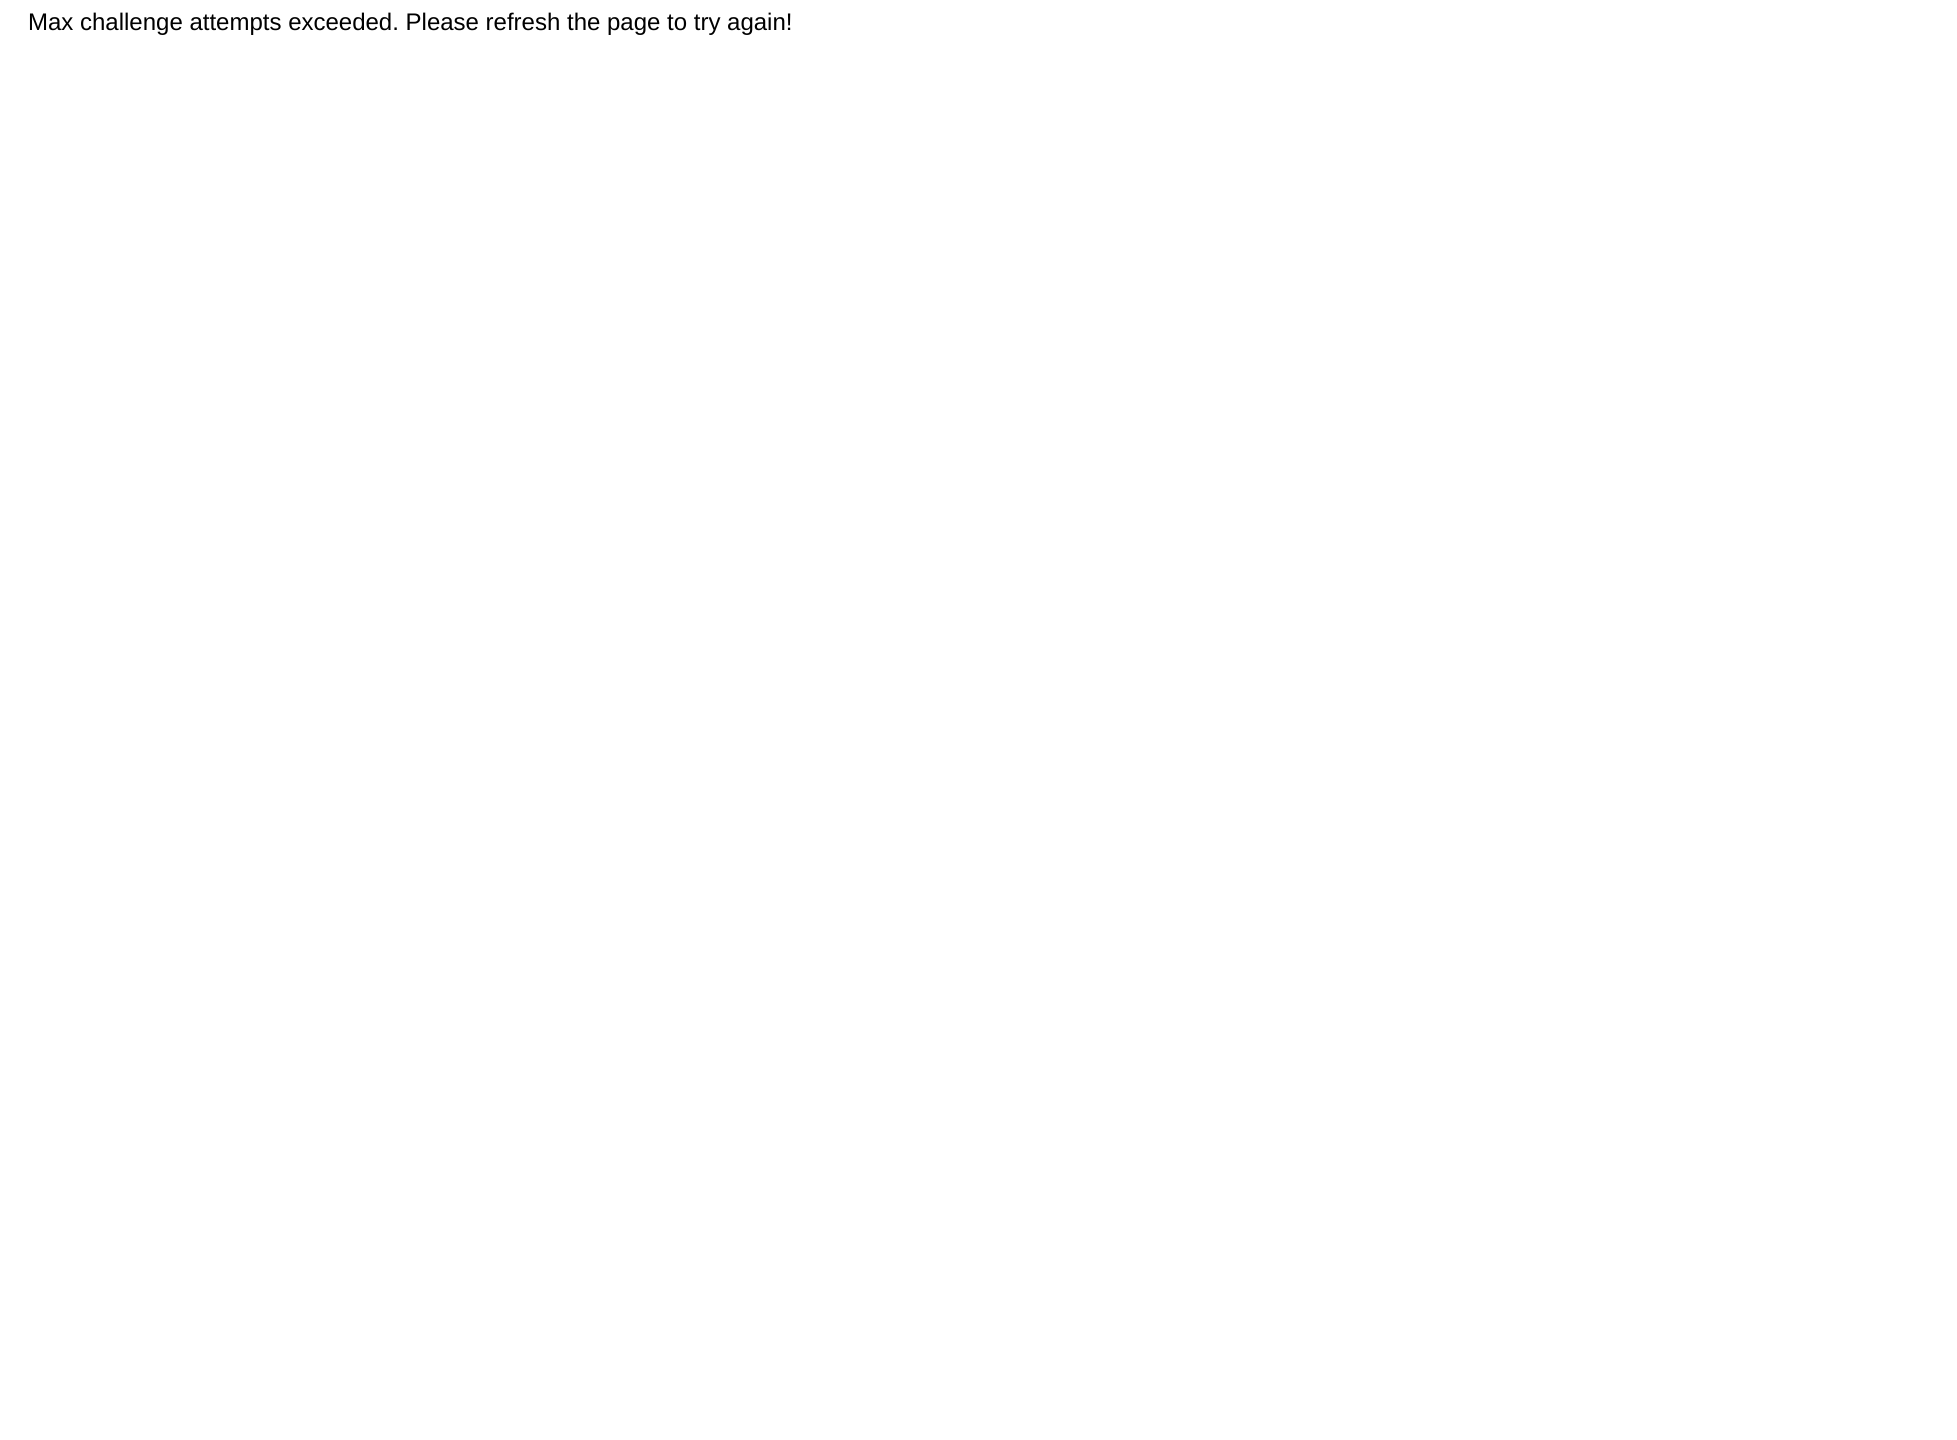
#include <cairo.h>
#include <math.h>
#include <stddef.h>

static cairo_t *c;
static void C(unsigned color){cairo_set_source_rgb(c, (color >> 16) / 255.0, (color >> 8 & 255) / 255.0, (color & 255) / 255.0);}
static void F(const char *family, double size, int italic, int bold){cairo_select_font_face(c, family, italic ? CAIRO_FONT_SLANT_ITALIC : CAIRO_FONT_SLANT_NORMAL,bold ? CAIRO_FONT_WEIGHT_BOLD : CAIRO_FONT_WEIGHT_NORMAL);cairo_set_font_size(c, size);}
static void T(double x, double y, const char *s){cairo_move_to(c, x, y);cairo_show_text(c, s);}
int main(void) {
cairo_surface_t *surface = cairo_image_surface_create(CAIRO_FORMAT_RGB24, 1957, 1440);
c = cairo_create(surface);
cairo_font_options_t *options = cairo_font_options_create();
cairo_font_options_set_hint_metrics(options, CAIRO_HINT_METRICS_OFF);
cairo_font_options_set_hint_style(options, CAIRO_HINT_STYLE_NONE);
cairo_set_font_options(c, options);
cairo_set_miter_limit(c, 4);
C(0xffffff);
cairo_paint(c);
F("Liberation Sans",24,0,0);
C(0x000000);
T(28,30,"Max challenge attempts exceeded. Please refresh the page to try again!");
cairo_surface_write_to_png(surface, "o.png");
cairo_font_options_destroy(options);
cairo_destroy(c);
cairo_surface_destroy(surface);
return 0;
}
